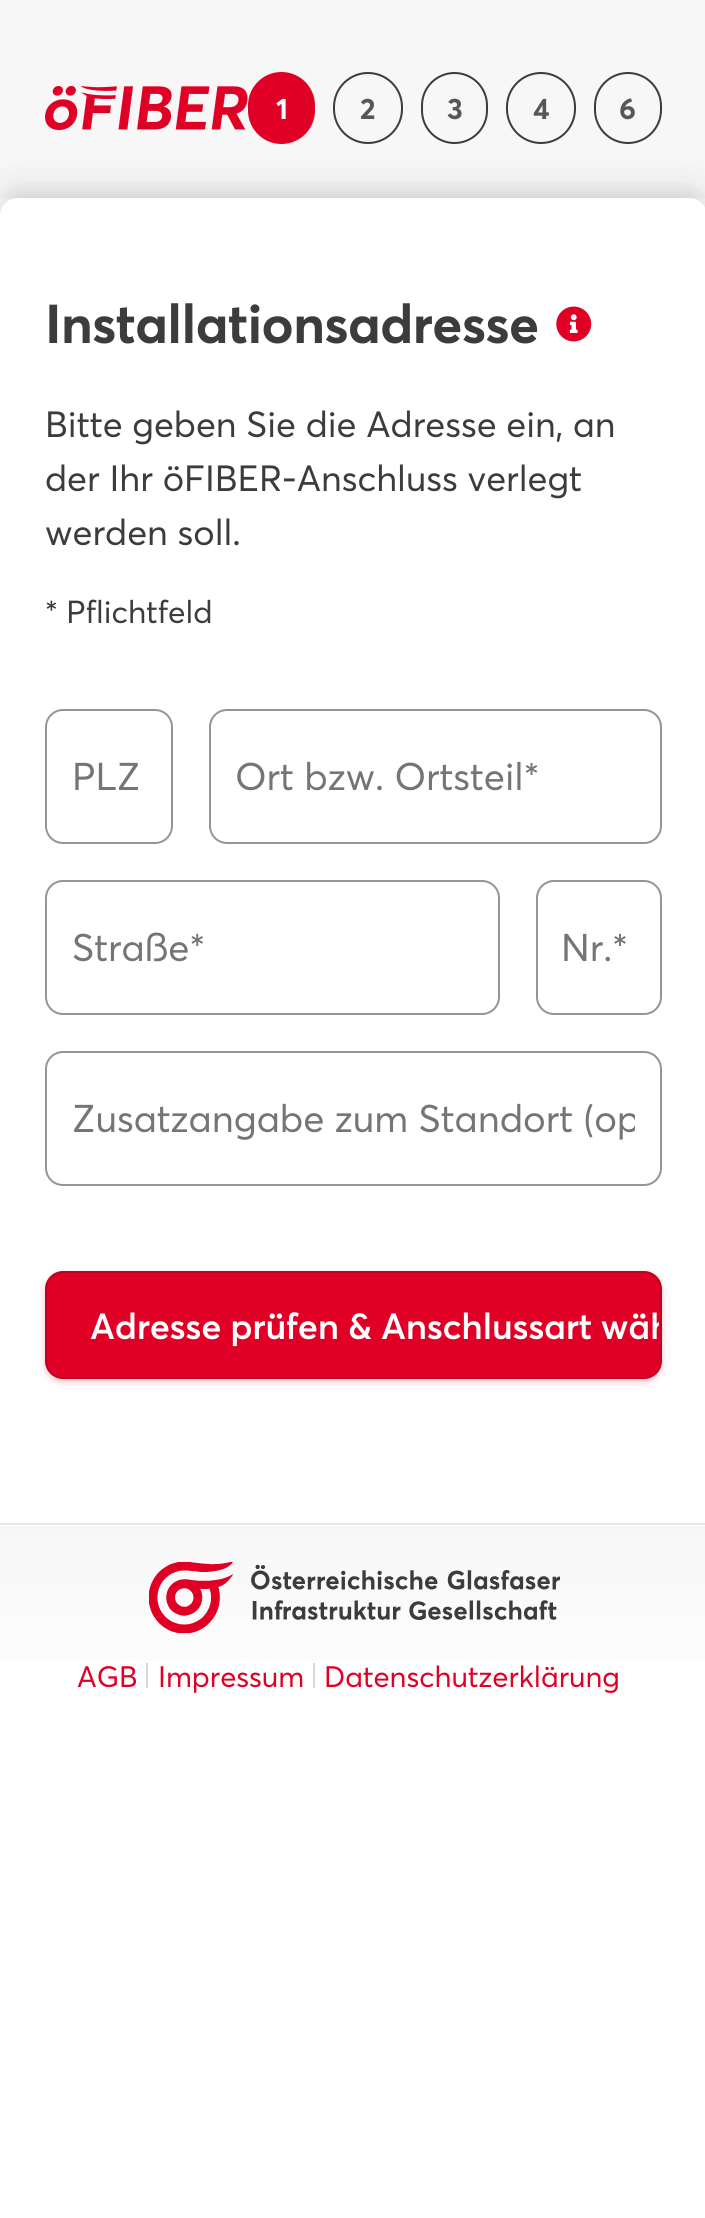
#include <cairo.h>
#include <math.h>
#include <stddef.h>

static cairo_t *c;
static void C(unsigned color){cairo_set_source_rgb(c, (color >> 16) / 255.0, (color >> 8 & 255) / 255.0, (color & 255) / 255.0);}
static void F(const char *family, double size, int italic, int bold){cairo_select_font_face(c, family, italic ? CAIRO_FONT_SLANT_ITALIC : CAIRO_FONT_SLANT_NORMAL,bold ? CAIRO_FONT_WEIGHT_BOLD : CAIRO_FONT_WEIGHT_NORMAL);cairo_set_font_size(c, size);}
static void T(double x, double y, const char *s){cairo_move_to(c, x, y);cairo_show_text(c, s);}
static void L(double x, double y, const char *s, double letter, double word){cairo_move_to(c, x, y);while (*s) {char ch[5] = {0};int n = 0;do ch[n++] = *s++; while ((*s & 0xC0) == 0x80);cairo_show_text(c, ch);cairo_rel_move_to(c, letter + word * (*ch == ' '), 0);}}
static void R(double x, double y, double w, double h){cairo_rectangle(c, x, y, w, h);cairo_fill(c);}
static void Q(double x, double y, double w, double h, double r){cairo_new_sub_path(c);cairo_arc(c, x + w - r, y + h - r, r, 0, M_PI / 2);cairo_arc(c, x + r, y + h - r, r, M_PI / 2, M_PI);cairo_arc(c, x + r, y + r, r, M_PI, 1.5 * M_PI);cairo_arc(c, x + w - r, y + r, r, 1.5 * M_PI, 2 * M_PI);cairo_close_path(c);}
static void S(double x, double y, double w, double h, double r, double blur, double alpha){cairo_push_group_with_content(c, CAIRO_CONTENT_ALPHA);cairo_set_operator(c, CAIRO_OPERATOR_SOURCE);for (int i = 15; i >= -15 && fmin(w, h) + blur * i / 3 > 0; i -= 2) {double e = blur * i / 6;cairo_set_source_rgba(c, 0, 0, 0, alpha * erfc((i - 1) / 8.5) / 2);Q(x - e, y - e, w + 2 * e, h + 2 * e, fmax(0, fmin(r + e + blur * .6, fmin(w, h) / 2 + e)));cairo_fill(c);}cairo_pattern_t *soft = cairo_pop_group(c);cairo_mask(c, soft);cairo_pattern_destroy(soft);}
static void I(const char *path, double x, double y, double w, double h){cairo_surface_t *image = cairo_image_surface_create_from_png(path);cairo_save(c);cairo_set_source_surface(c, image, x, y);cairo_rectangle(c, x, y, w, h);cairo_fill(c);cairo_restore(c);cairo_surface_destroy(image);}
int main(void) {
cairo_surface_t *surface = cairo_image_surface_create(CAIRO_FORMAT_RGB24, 705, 2218);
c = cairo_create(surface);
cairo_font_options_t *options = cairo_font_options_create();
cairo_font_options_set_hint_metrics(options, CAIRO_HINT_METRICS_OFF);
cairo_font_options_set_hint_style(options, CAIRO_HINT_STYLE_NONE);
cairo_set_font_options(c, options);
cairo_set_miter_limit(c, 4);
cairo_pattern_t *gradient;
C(0xffffff);
cairo_paint(c);
C(0xf7f7f7);
R(0,0,705,198);
C(0x000000);
S(0,185,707,1325,18,20,.08);
I("1.png",45,86,203,44);
C(0xe00025);
Q(249,73,65,70,32.5);
cairo_fill_preserve(c);
cairo_stroke(c);
F("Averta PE",29.25,0,1);
C(0xffffff);
T(276,119,"1");
Q(334,73,68,70,34);
C(0x3c3c3c);
cairo_stroke(c);
C(0x575757);
T(360,119,"2");
Q(422,73,65,70,32.5);
C(0x3c3c3c);
cairo_stroke(c);
C(0x575757);
T(447,119,"3");
Q(507,73,68,70,34);
C(0x3c3c3c);
cairo_stroke(c);
C(0x575757);
T(533,119,"4");
Q(595,73,66,70,33);
C(0x3c3c3c);
cairo_stroke(c);
C(0x575757);
T(619,119,"6");
C(0x000000);
S(0,191,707,1326,18,7,.08);
C(0xffffff);
cairo_new_path(c);
cairo_move_to(c,18,198);
cairo_line_to(c,689,198);
cairo_curve_to(c,699,198,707,206,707,216);
cairo_line_to(c,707,1523);
cairo_line_to(c,0,1523);
cairo_line_to(c,0,216);
cairo_curve_to(c,0,206,8,198,18,198);
cairo_close_path(c);
cairo_fill(c);
F("Averta PE",54,0,1);
C(0x3c3c3c);
L(45,343,"Installationsadresse",-.5,0);
I("2.png",556,306,36,36);
F("AvertaPE",36,0,0);
T(45,437,"Bitte geben Sie die Adresse ein, an");
T(45,491,"der Ihr öFIBER-Anschluss verlegt");
T(45,545,"werden soll.");
F("AvertaPE",31.5,0,0);
T(45,623,"* Pflichtfeld");
Q(46,710,126,133,17);
C(0x959595);
cairo_stroke(c);
F("AvertaPE",38.25,0,0);
C(0x757575);
T(72,790,"PLZ");
Q(210,710,451,133,17);
C(0x959595);
cairo_stroke(c);
C(0x757575);
T(235,790,"Ort bzw. Ortsteil*");
Q(46,881,453,133,17);
C(0x959595);
cairo_stroke(c);
C(0x757575);
T(72,961,"Straße*");
Q(537,881,124,133,17);
C(0x959595);
cairo_stroke(c);
C(0x757575);
T(561,961,"Nr.*");
Q(46,1052,615,133,17);
C(0x959595);
cairo_stroke(c);
cairo_save(c);
cairo_rectangle(c,72,1096,563,47);
cairo_clip(c);
C(0x757575);
T(72,1132,"Zusatzangabe zum Standort (op");
cairo_restore(c);
C(0xe00025);
S(45,1274,617,108,18,3.5,.25);
C(0xe00025);
Q(46,1272,615,106,17);
cairo_fill_preserve(c);
C(0xc20020);
cairo_stroke(c);
cairo_save(c);
Q(47,1274,612,103,16);
cairo_clip(c);
F("Averta PE SemiBold",36,0,0);
C(0xffffff);
L(90,1339,"Adresse prüfen & Anschlussart wäh",-.35,0);
cairo_restore(c);
gradient = cairo_pattern_create_linear(353,1328,353,1526);
cairo_pattern_add_color_stop_rgba(gradient,0,0.969,0.969,0.969,1);
cairo_pattern_add_color_stop_rgba(gradient,1,1,1,1,1);
cairo_set_source(c,gradient);
cairo_pattern_destroy(gradient);
R(0,1525,705,1);
gradient = cairo_pattern_create_linear(353,1526,353,1724);
cairo_pattern_add_color_stop_rgba(gradient,0,0.969,0.969,0.969,1);
cairo_pattern_add_color_stop_rgba(gradient,1,1,1,1,1);
cairo_set_source(c,gradient);
cairo_pattern_destroy(gradient);
R(0,1526,705,136);
C(0xe5e5e5);
R(0,1523,705,2);
I("3.png",149,1562,411,72);
F("AvertaPE",29.25,0,0);
C(0xe00025);
T(77,1687,"AGB");
C(0xd9d9d9);
R(146,1663,2,25);
C(0xe00025);
T(158,1687,"Impressum");
C(0xd9d9d9);
R(313,1663,2,25);
C(0xe00025);
T(324,1687,"Datenschutzerklärung");
cairo_surface_write_to_png(surface, "o.png");
cairo_font_options_destroy(options);
cairo_destroy(c);
cairo_surface_destroy(surface);
return 0;
}
